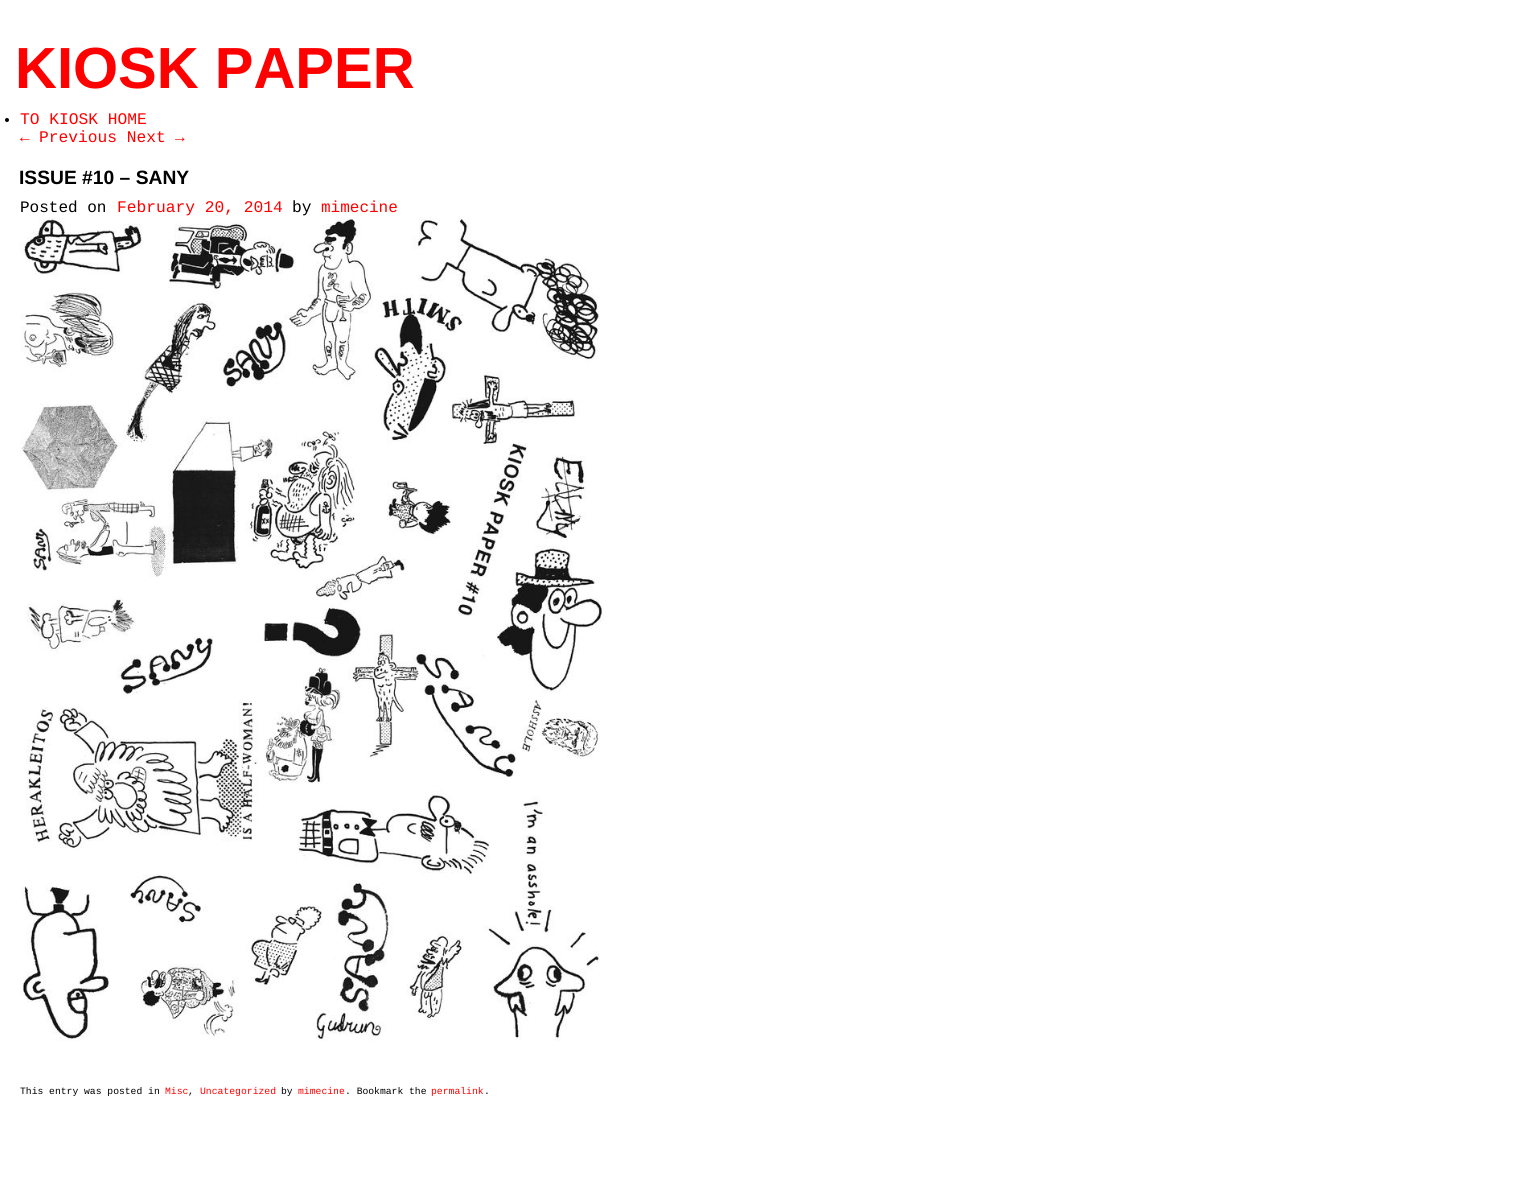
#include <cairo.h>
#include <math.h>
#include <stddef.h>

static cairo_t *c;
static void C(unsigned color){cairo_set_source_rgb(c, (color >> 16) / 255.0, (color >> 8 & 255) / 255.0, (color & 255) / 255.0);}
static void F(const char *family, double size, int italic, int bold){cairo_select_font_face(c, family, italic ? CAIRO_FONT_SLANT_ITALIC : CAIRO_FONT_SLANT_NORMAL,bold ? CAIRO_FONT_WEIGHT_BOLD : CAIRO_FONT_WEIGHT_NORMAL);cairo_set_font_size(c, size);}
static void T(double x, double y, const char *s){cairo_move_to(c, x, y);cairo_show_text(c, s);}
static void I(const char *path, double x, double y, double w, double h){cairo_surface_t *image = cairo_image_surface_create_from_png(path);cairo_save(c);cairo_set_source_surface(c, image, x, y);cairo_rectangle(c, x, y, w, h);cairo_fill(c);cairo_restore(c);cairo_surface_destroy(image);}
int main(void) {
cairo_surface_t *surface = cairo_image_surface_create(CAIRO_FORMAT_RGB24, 1537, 1186);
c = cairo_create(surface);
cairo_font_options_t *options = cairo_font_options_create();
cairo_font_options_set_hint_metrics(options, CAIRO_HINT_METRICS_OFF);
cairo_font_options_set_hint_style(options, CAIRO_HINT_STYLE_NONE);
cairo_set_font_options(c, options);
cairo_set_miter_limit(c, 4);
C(0xffffff);
cairo_paint(c);
F("Liberation Sans",58,0,1);
C(0xff0000);
T(15,88,"KIOSK PAPER");
C(0x000000);
cairo_new_path(c);
cairo_arc(c,7,120,2,0,2 * M_PI);
cairo_fill(c);
F("Liberation Mono",16.25,0,0);
C(0xff0000);
T(20,124,"TO KIOSK HOME");
F("Liberation Mono",16,0,0);
T(20,142,"←");
F("Liberation Mono",16.25,0,0);
T(39,142,"Previous Next");
F("Liberation Mono",16,0,0);
T(175,142,"→");
F("Liberation Sans",19.25,0,1);
C(0x000000);
T(19,184,"ISSUE #10 – SANY");
F("Liberation Mono",16,0,0);
T(20,212,"Posted on");
F("Liberation Mono",16.25,0,0);
C(0xff0000);
T(117,212,"February 20, 2014");
C(0x000000);
T(292,212,"by");
F("Liberation Mono",16,0,0);
C(0xff0000);
T(321,212,"mimecine");
I("1.png",20,217,584,824);
F("Liberation Mono",9.7,0,0);
C(0x000000);
T(20,1094,"This entry was posted in");
F("Liberation Mono",9.75,0,0);
C(0xff0000);
T(165,1094,"Misc");
F("Liberation Mono",9.7,0,0);
C(0x000000);
T(188,1094,",");
F("Liberation Mono",9.75,0,0);
C(0xff0000);
T(200,1094,"Uncategorized");
F("Liberation Mono",9.7,0,0);
C(0x000000);
T(281,1094,"by");
F("Liberation Mono",9.75,0,0);
C(0xff0000);
T(298,1094,"mimecine");
F("Liberation Mono",9.7,0,0);
C(0x000000);
T(345,1094,". Bookmark the");
F("Liberation Mono",9.75,0,0);
C(0xff0000);
T(431,1094,"permalink");
F("Liberation Mono",9.7,0,0);
C(0x000000);
T(484,1094,".");
cairo_surface_write_to_png(surface, "o.png");
cairo_font_options_destroy(options);
cairo_destroy(c);
cairo_surface_destroy(surface);
return 0;
}
